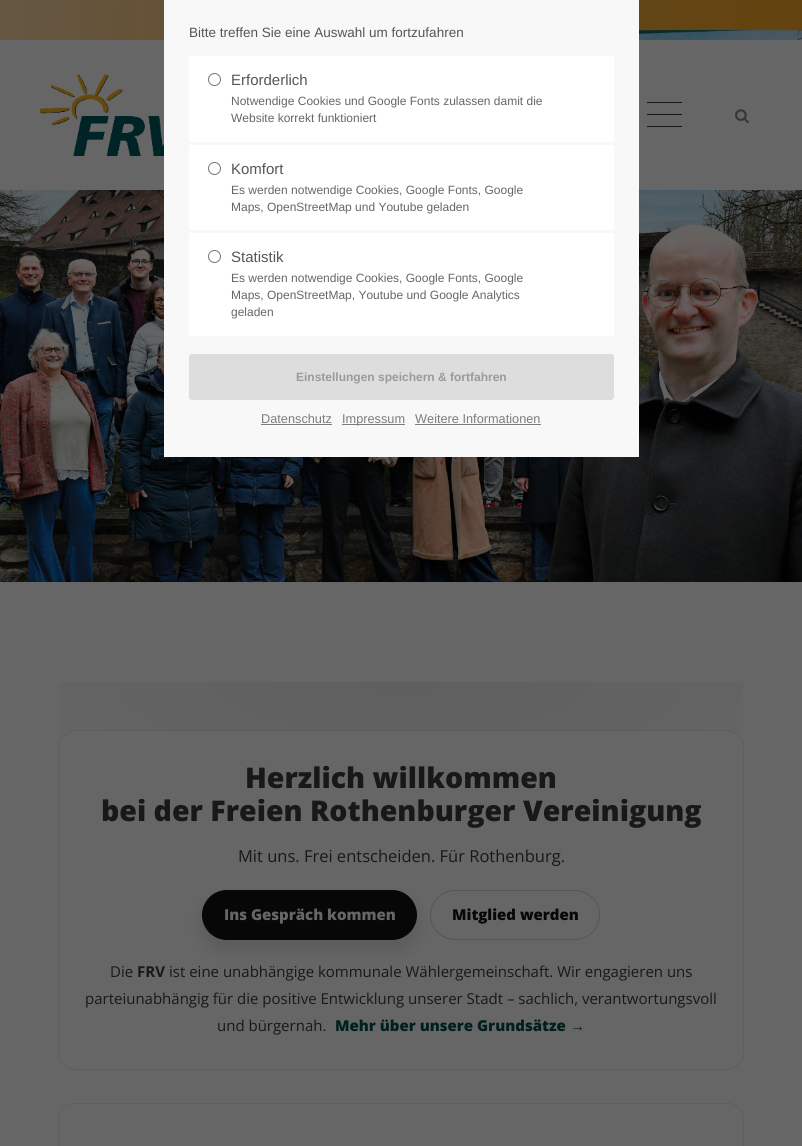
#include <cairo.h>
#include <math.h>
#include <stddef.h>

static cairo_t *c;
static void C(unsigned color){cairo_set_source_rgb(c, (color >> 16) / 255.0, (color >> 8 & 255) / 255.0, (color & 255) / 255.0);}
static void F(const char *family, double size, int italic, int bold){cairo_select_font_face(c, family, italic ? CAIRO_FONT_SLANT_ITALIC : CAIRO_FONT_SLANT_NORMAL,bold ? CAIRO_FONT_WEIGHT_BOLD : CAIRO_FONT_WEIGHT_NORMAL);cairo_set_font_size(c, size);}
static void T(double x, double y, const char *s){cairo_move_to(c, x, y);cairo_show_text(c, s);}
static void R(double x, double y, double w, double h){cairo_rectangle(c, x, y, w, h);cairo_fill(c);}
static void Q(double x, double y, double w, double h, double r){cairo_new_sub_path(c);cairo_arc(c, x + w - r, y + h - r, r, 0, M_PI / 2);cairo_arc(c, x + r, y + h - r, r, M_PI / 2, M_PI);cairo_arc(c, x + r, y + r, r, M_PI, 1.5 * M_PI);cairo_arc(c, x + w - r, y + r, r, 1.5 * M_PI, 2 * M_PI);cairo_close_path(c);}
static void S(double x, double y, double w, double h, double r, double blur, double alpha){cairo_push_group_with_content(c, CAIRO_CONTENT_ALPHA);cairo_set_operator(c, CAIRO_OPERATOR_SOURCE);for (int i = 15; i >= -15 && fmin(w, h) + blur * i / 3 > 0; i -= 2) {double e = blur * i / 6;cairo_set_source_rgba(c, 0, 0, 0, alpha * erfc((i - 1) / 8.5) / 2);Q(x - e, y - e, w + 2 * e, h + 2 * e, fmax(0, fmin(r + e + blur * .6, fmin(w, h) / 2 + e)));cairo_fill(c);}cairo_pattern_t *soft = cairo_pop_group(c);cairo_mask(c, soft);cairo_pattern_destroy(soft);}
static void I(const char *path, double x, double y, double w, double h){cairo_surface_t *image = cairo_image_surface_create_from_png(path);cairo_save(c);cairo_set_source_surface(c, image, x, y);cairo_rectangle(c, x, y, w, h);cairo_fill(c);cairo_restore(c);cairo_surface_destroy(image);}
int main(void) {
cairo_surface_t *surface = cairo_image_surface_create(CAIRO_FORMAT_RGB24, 802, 1146);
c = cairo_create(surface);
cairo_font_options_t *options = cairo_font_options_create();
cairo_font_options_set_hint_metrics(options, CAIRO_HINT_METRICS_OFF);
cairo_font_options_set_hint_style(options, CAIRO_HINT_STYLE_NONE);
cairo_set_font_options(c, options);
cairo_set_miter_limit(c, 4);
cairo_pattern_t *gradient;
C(0x666666);
cairo_paint(c);
I("1.png",0,0,802,582);
C(0x666666);
R(0,40,802,150);
C(0xf8f8f8);
R(164,0,475,457);
F("Liberation Sans",13.5,0,0);
C(0x555555);
T(189,37,"Bitte treffen Sie eine Auswahl um fortzufahren");
C(0xffffff);
R(189,56,425,86);
cairo_new_path(c);
cairo_arc(c,214.5,79.5,6,0,2 * M_PI);
C(0x767676);
cairo_set_line_width(c,1);
cairo_stroke(c);
F("Liberation Sans",15,0,0);
C(0x555555);
T(231,85,"Erforderlich");
F("Liberation Sans",12,0,0);
C(0x666666);
T(231,105,"Notwendige Cookies und Google Fonts zulassen damit die");
T(231,122,"Website korrekt funktioniert");
C(0xffffff);
R(189,145,425,85);
cairo_new_path(c);
cairo_arc(c,214.5,168.5,6,0,2 * M_PI);
C(0x767676);
cairo_stroke(c);
F("Liberation Sans",15,0,0);
C(0x555555);
T(231,174,"Komfort");
F("Liberation Sans",12,0,0);
C(0x666666);
T(231,194,"Es werden notwendige Cookies, Google Fonts, Google");
T(231,211,"Maps, OpenStreetMap und Youtube geladen");
C(0xffffff);
R(189,233,425,103);
cairo_new_path(c);
cairo_arc(c,214.5,256.5,6,0,2 * M_PI);
C(0x767676);
cairo_stroke(c);
F("Liberation Sans",15,0,0);
C(0x555555);
T(231,262,"Statistik");
F("Liberation Sans",12,0,0);
C(0x666666);
T(231,282,"Es werden notwendige Cookies, Google Fonts, Google");
T(231,299,"Maps, OpenStreetMap, Youtube und Google Analytics");
T(231,316,"geladen");
C(0xdddddd);
Q(189.5,354.5,424,45,2.5);
cairo_fill_preserve(c);
cairo_stroke(c);
F("Liberation Sans",12,0,1);
C(0x9a9a9a);
T(296,381,"Einstellungen speichern & fortfahren");
F("Liberation Sans",12.75,0,0);
C(0x7c7c7c);
T(261,423,"Datenschutz");
R(261,424,71,1);
R(342,424,63,1);
T(342,423,"Impressum");
T(415,423,"Weitere Informationen");
R(415,424,126,1);
I("2.png",40,74,124,82);
C(0x171717);
R(647,114,35,1);
R(647,102,35,1);
R(647,126,35,1);
I("3.png",735,109,14,15);
gradient = cairo_pattern_create_radial(0,0,0,0,0,1);
cairo_pattern_set_matrix(gradient, &(cairo_matrix_t){1.0 / 900, 0, 0, 1.0 / 260, -1.0 * 401 / 900, -1.0 * 682 / 260});
cairo_pattern_add_color_stop_rgba(gradient,0,0,0,0,.07);
cairo_pattern_add_color_stop_rgba(gradient,.6,0,0,0,0);
cairo_set_source(c,gradient);
cairo_pattern_destroy(gradient);
R(59,682,684,49);
C(0x666666);
Q(58,730,686,340,18);
cairo_fill(c);
Q(58.5,730.5,685,339,17.5);
cairo_set_source_rgba(c,0,0,0,0.08);
cairo_stroke(c);
F("Open Sans ExtraBold",28.5,0,0);
C(0x18181a);
T(245,788,"Herzlich willkommen");
T(101,821,"bei der Freien Rothenburger Vereinigung");
F("Open Sans",16.5,0,0);
T(238,862,"Mit uns. Frei entscheiden. Für Rothenburg.");
C(0x000000);
S(202,900,215,50,25,9,.12);
C(0x070707);
Q(202.5,890.5,214,49,24.5);
cairo_fill_preserve(c);
cairo_stroke(c);
F("Open Sans ExtraBold",15,0,0);
C(0x666666);
T(224,920,"Ins Gespräch kommen");
Q(430.5,890.5,169,49,24.5);
C(0x565656);
cairo_stroke(c);
C(0x070707);
T(452,920,"Mitglied werden");
F("Open Sans",15,0,0);
C(0x18181a);
T(110,977,"Die");
F("Open Sans",15,0,1);
T(137,977,"FRV");
F("Open Sans",15,0,0);
T(169,977,"ist eine unabhängige kommunale Wählergemeinschaft. Wir engagieren uns");
T(85,1004,"parteiunabhängig für die positive Entwicklung unserer Stadt – sachlich, verantwortungsvoll");
T(217,1031,"und bürgernah.");
F("Open Sans ExtraBold",15,0,0);
C(0x00201f);
T(335,1031,"Mehr über unsere Grundsätze");
F("Liberation Serif",15,0,1);
T(570,1031,"→");
Q(58.5,1103.5,685,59,15.5);
C(0x5e5e5e);
cairo_stroke(c);
cairo_surface_write_to_png(surface, "o.png");
cairo_font_options_destroy(options);
cairo_destroy(c);
cairo_surface_destroy(surface);
return 0;
}
